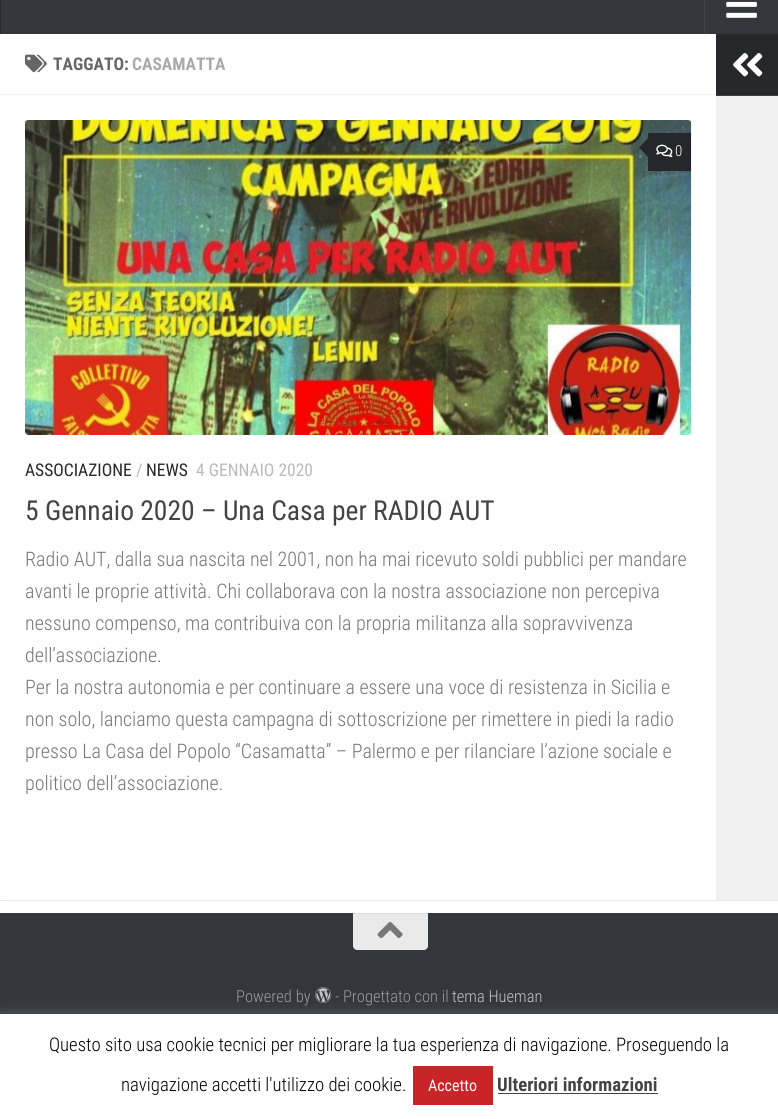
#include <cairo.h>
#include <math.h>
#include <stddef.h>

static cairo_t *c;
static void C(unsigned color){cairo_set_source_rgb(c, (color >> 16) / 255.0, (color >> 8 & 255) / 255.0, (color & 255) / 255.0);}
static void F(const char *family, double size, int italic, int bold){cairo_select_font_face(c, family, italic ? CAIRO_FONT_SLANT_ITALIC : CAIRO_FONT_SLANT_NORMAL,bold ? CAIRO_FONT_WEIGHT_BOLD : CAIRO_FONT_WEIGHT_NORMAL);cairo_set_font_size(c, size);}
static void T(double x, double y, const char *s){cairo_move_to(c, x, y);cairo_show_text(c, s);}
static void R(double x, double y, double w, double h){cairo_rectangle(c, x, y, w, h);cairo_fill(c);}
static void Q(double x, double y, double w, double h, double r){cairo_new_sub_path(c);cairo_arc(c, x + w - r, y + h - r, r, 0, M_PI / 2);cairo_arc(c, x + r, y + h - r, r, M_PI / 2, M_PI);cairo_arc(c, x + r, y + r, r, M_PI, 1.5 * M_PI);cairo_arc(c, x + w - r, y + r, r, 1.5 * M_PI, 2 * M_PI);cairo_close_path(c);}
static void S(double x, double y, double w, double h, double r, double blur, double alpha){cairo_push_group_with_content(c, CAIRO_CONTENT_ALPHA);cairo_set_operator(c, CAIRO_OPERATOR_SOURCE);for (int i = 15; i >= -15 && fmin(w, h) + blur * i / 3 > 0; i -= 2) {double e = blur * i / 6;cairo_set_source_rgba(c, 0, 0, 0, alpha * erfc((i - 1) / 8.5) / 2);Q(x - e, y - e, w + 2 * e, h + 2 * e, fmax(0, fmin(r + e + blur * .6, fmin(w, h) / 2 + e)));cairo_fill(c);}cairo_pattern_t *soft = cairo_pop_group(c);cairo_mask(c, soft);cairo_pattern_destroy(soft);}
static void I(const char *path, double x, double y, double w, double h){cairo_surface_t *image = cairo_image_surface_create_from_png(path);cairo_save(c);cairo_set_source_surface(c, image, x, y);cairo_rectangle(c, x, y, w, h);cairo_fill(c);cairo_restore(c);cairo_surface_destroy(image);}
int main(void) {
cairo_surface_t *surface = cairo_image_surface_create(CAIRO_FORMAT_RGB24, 778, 1119);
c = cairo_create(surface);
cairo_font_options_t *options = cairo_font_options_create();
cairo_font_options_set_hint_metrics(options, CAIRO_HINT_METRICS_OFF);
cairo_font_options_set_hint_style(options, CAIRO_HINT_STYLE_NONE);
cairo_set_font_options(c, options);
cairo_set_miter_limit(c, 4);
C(0xffffff);
cairo_paint(c);
cairo_save(c);
cairo_rectangle(c,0,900,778,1);
cairo_clip(c);
C(0x000000);
S(0,35,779,866,0,.5,.1);
cairo_restore(c);
C(0x33363b);
R(1,0,777,34);
C(0x292b2f);
R(0,0,1,34);
C(0x3f4247);
R(704,0,1,34);
I("1.png",726,1,31,17);
C(0xeeeeee);
R(0,94,716,1);
I("2.png",25,54,22,19);
F("Roboto Condensed",17.5,0,1);
C(0x666666);
T(53,70,"TAGGATO:");
C(0xaaaaaa);
T(132,70,"CASAMATTA");
I("3.png",25,120,667,315);
C(0x26272b);
R(648,133,42,38);
C(0x1e1f22);
R(690,133,1,38);
C(0x26272b);
cairo_new_path(c);
cairo_move_to(c,650,136);
cairo_line_to(c,650,159);
cairo_line_to(c,639,147.5);
cairo_close_path(c);
cairo_fill(c);
I("4.png",656,144,17,14);
F("Roboto Condensed Light",15,0,0);
C(0xffffff);
T(675,156,"0");
F("Roboto Condensed",17.5,0,0);
C(0x26272b);
T(25,476,"ASSOCIAZIONE");
C(0xbbbbbb);
T(136,476,"/");
C(0x26272b);
T(146,476,"NEWS");
C(0xbbbbbb);
T(196,476,"4 GENNAIO 2020");
F("Roboto Condensed",27.5,0,0);
C(0x444444);
T(25,520,"5 Gennaio 2020 – Una Casa per RADIO AUT");
F("Roboto Condensed Light",20,0,0);
C(0x767676);
T(25,566,"Radio AUT, dalla sua nascita nel 2001, non ha mai ricevuto soldi pubblici per mandare");
T(25,598,"avanti le proprie attività. Chi collaborava con la nostra associazione non percepiva");
T(25,630,"nessuno compenso, ma contribuiva con la propria militanza alla sopravvivenza");
T(25,662,"dell’associazione.");
T(25,694,"Per la nostra autonomia e per continuare a essere una voce di resistenza in Sicilia e");
T(25,726,"non solo, lanciamo questa campagna di sottoscrizione per rimettere in piedi la radio");
T(25,758,"presso La Casa del Popolo “Casamatta” – Palermo e per rilanciare l’azione sociale e");
T(25,790,"politico dell’associazione.");
C(0x26272b);
R(716,34,62,61);
C(0x3c3d40);
R(716,95,62,1);
I("5.png",733,53,30,24);
C(0xf0f0f0);
R(716,96,62,804);
C(0x33363b);
R(0,913,778,101);
C(0xeaeaea);
cairo_new_path(c);
cairo_move_to(c,353,913);
cairo_line_to(c,428,913);
cairo_line_to(c,428,946);
cairo_curve_to(c,428,948,426,950,424,950);
cairo_line_to(c,357,950);
cairo_curve_to(c,355,950,353,948,353,946);
cairo_close_path(c);
cairo_fill(c);
C(0xdedede);
R(353,913,75,1);
I("6.png",377,922,26,16);
F("Roboto Condensed Light",16.5,0,0);
C(0x999b9d);
T(236,1002,"Powered by");
I("7.png",315,987,17,17);
T(335,1002,"- Progettato con il");
C(0xc2c3c4);
T(452,1002,"tema Hueman");
C(0xacabab);
S(0,1013,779,106,0,6,.3);
C(0xffffff);
R(0,1014,778,105);
F("Roboto Condensed Light",18.75,0,0);
C(0x000000);
T(49,1051,"Questo sito usa cookie tecnici per migliorare la tua esperienza di navigazione. Proseguendo la");
T(121,1091,"navigazione accetti l'utilizzo dei cookie.");
C(0xc92427);
R(413,1066,80,39);
F("Roboto Condensed",16,0,0);
C(0xffffff);
T(428,1091,"Accetto");
F("Roboto Condensed",18.75,0,1);
C(0x444444);
T(497,1091,"Ulteriori informazioni");
R(498,1093,160,1);
cairo_surface_write_to_png(surface, "o.png");
cairo_font_options_destroy(options);
cairo_destroy(c);
cairo_surface_destroy(surface);
return 0;
}
